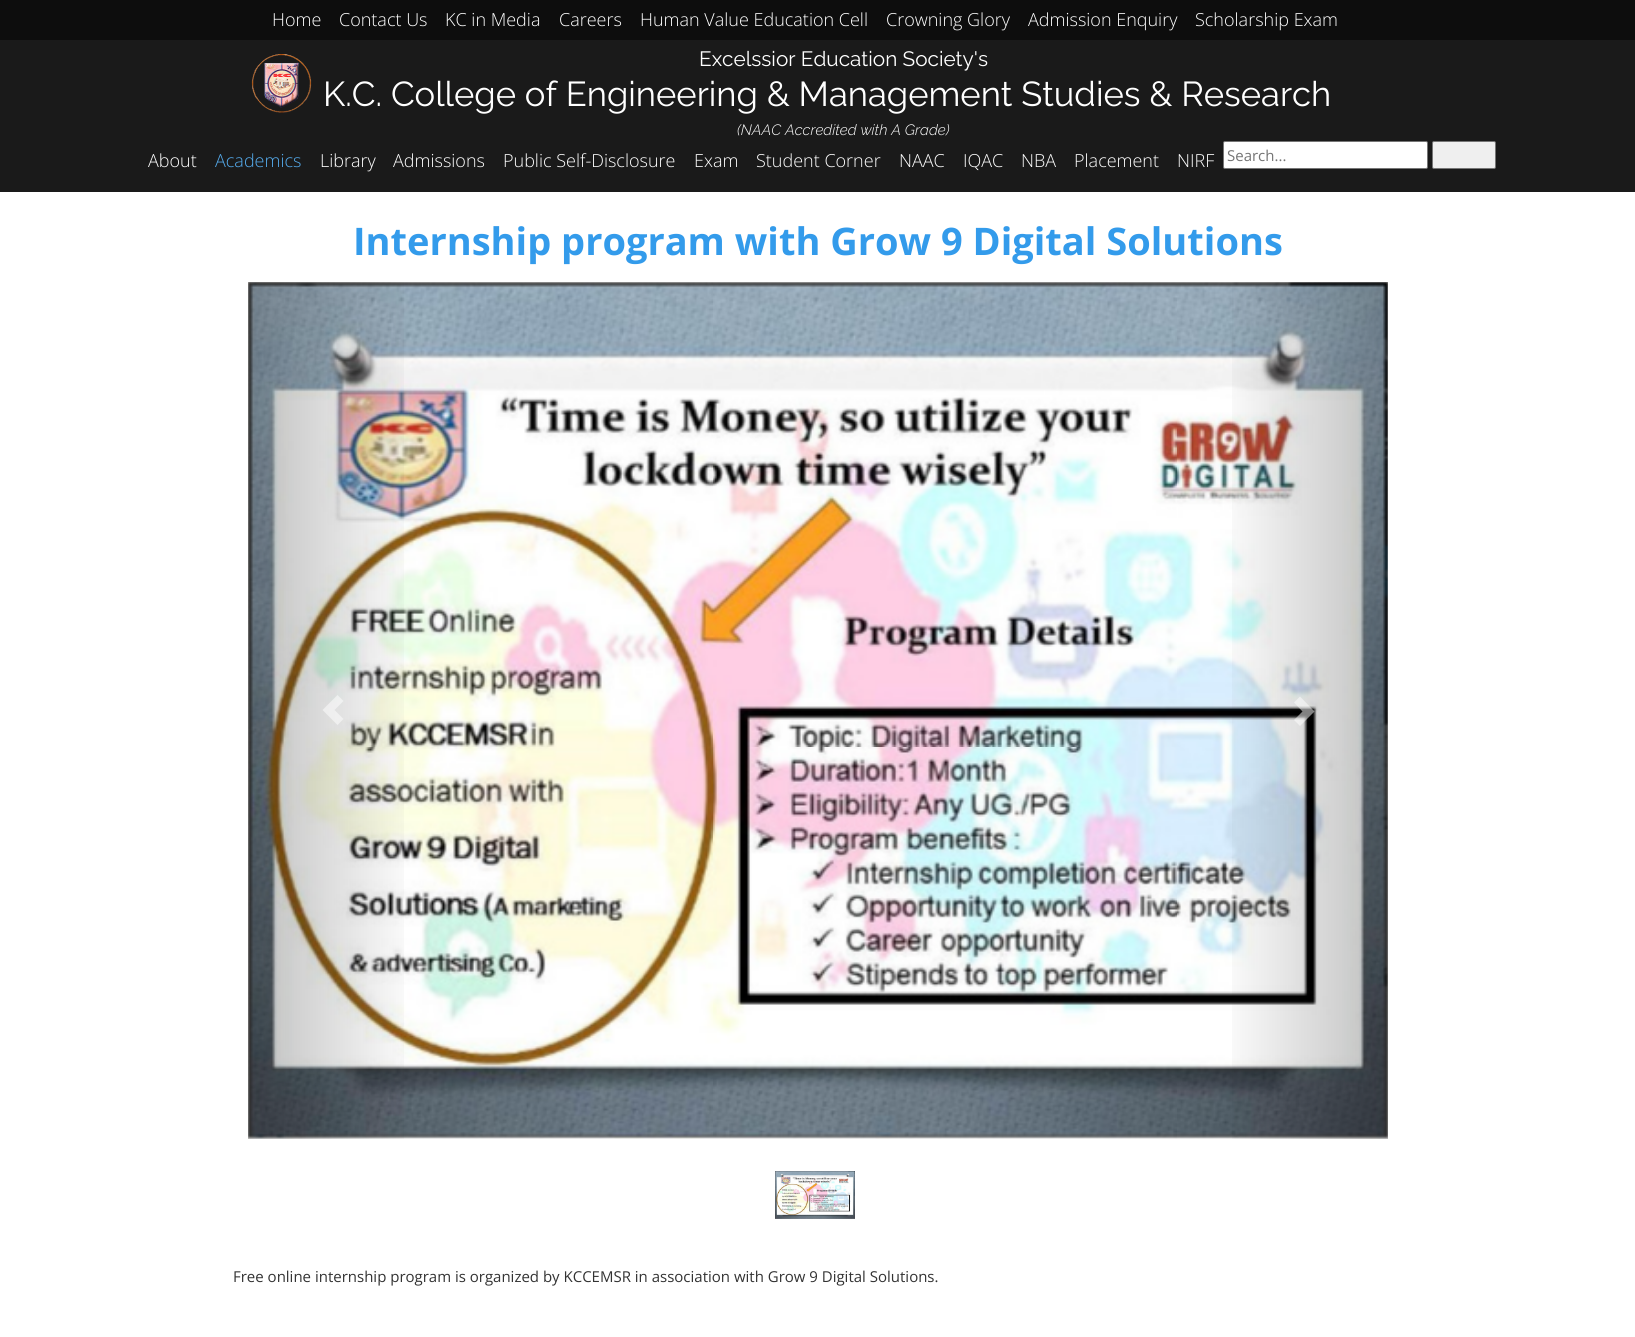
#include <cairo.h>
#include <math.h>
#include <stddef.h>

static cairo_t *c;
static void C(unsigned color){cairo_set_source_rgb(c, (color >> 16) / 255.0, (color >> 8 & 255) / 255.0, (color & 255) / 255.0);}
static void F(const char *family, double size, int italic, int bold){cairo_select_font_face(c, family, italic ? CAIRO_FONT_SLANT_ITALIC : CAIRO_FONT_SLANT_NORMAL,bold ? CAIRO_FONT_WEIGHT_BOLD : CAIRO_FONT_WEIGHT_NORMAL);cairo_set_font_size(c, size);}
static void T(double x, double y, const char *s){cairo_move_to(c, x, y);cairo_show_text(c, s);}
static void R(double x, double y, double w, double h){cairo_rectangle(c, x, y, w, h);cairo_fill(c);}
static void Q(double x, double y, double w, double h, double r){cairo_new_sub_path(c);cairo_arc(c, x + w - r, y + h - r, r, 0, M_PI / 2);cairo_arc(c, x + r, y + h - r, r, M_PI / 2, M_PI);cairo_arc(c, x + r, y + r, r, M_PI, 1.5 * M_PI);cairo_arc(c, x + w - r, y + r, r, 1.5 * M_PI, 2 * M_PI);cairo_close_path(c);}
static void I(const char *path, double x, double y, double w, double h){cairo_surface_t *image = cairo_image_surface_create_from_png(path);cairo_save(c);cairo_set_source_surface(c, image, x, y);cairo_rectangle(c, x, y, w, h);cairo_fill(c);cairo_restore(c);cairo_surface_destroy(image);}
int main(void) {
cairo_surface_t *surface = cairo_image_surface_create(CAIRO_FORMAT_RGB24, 1635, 1337);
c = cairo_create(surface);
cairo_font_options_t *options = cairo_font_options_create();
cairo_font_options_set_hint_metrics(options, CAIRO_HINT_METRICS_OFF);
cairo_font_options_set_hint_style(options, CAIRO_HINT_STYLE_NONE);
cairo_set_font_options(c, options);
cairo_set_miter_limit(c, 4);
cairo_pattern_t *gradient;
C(0xffffff);
cairo_paint(c);
C(0x1a1a1a);
R(0,40,1635,152);
C(0x0d0d0d);
R(0,0,1635,40);
F("Open Sans Light",18,0,0);
C(0xffffff);
T(272,26,"Home");
T(339,26,"Contact Us");
T(445,26,"KC in Media");
T(559,26,"Careers");
T(640,26,"Human Value Education Cell");
T(886,26,"Crowning Glory");
T(1028,26,"Admission Enquiry");
T(1195,26,"Scholarship Exam");
I("1.png",251,54,61,59);
F("Raleway",20.75,0,0);
T(699,66,"Excelssior Education Society's");
F("Raleway",34.6,0,0);
T(323,106,"K.C. College of Engineering & Management Studies & Research");
F("Raleway Light",15,1,0);
T(737,135,"(NAAC Accredited with A Grade)");
F("Open Sans Light",18,0,0);
T(148,167,"About");
C(0x55acee);
T(215,167,"Academics");
C(0xffffff);
T(320,167,"Library");
T(393,167,"Admissions");
T(503,167,"Public Self-Disclosure");
T(694,167,"Exam");
T(756,167,"Student Corner");
T(899,167,"NAAC");
T(963,167,"IQAC");
T(1021,167,"NBA");
T(1074,167,"Placement");
T(1177,167,"NIRF");
Q(1223.5,141.5,204,27,1.5);
cairo_fill_preserve(c);
C(0x767676);
cairo_set_line_width(c,1);
cairo_stroke(c);
F("Open Sans",15,0,0);
C(0x757575);
T(1227,161,"Search...");
C(0xefefef);
Q(1432.5,141.5,63,27,1.5);
cairo_fill_preserve(c);
C(0x767676);
cairo_stroke(c);
F("Open Sans",38,0,1);
C(0x339beb);
T(353,255,"Internship program with Grow 9 Digital Solutions");
I("2.png",248,282,1140,857);
gradient = cairo_pattern_create_linear(248,711,419,711);
cairo_pattern_add_color_stop_rgba(gradient,0,0,0,0,.25);
cairo_pattern_add_color_stop_rgba(gradient,1,0,0,0,0);
cairo_set_source(c,gradient);
cairo_pattern_destroy(gradient);
R(248,282,156,857);
cairo_set_source_rgba(c,1,1,1,0.5);
cairo_new_path(c);
cairo_move_to(c,322.5,710);
cairo_line_to(c,337.5,725);
cairo_line_to(c,343.5,719);
cairo_line_to(c,334.5,710);
cairo_line_to(c,343.5,701);
cairo_line_to(c,337.5,695);
cairo_close_path(c);
cairo_fill(c);
gradient = cairo_pattern_create_linear(1217,711,1388,711);
cairo_pattern_add_color_stop_rgba(gradient,0,0,0,0,0);
cairo_pattern_add_color_stop_rgba(gradient,1,0,0,0,.25);
cairo_set_source(c,gradient);
cairo_pattern_destroy(gradient);
R(1232,282,156,857);
cairo_set_source_rgba(c,1,1,1,0.5);
cairo_new_path(c);
cairo_move_to(c,1294,720);
cairo_line_to(c,1302.5,711.5);
cairo_line_to(c,1294,702.5);
cairo_line_to(c,1300,696.5);
cairo_line_to(c,1314.5,711.5);
cairo_line_to(c,1300,726);
cairo_close_path(c);
cairo_fill(c);
I("3.png",775,1171,80,48);
F("Open Sans",15,0,0);
C(0x333333);
T(233,1282,"Free online internship program is organized by KCCEMSR in association with Grow 9 Digital Solutions.");
cairo_surface_write_to_png(surface, "o.png");
cairo_font_options_destroy(options);
cairo_destroy(c);
cairo_surface_destroy(surface);
return 0;
}
